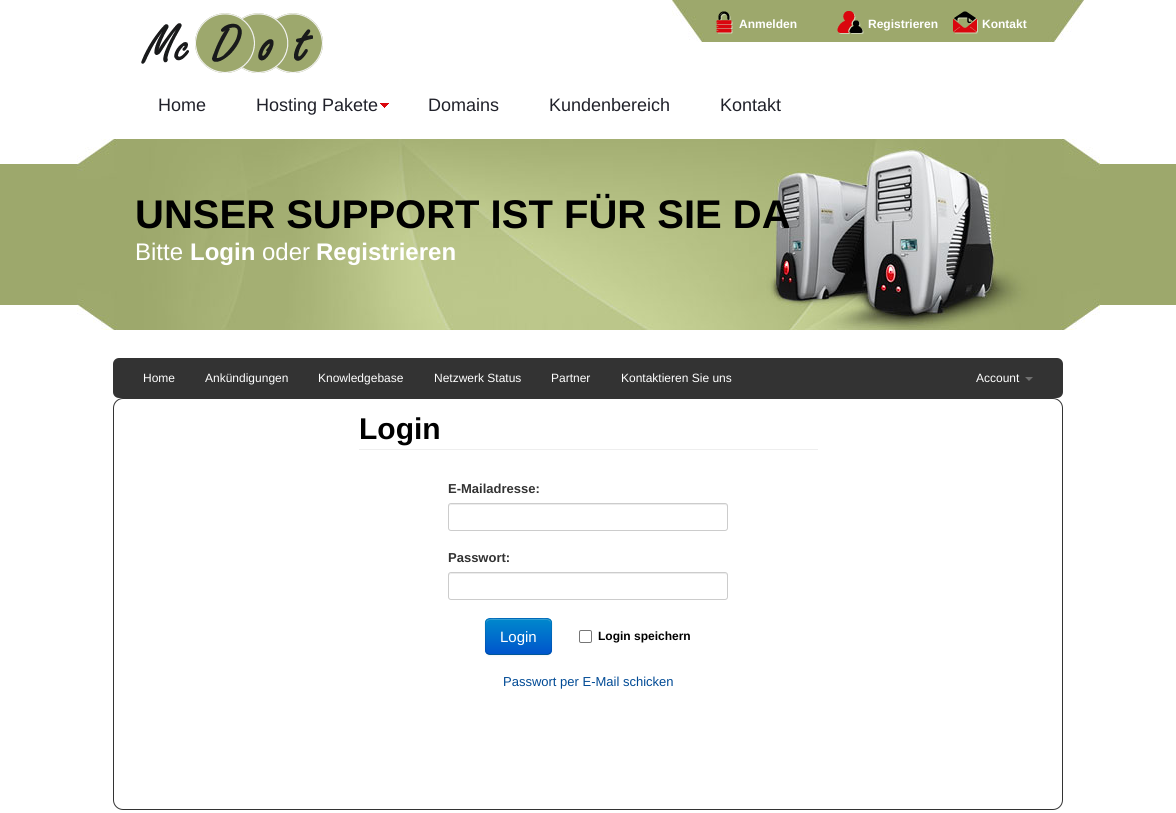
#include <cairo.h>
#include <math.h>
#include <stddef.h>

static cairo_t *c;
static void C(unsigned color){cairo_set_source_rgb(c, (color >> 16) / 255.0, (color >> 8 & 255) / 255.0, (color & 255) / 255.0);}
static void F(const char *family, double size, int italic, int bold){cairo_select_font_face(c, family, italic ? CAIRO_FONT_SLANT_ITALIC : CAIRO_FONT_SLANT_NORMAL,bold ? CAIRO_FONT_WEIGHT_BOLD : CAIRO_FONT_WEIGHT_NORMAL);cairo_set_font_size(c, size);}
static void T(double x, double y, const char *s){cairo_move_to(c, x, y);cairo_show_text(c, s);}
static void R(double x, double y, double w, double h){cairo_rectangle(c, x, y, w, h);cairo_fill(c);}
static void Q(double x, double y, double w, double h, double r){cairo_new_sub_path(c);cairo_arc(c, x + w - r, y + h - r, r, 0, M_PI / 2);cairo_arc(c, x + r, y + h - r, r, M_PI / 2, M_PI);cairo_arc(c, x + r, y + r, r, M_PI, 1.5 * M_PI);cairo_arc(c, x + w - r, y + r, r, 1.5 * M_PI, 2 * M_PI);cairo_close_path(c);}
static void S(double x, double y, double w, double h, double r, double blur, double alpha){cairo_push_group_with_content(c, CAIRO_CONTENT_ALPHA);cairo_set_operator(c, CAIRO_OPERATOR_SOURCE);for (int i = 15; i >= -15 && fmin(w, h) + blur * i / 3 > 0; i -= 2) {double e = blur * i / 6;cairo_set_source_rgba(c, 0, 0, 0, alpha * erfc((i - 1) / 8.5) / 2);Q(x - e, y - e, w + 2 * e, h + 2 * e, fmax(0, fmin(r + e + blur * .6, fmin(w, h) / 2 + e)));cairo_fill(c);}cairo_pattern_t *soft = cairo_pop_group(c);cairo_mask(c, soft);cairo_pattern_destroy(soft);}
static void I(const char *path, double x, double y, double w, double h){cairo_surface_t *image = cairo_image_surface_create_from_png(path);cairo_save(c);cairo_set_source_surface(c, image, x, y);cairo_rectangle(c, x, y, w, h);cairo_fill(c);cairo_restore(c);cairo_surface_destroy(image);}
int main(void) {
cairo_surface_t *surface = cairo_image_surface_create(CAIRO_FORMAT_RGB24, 1176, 813);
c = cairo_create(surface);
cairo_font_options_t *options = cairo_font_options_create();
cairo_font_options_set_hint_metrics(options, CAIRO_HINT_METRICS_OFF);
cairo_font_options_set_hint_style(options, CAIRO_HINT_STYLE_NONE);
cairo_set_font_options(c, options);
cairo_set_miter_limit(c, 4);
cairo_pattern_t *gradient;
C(0xffffff);
cairo_paint(c);
I("1.png",141,13,182,60);
I("2.png",672,0,412,42);
I("3.png",716,11,17,23);
F("Liberation Sans",12,0,1);
C(0xffffff);
T(739,28,"Anmelden");
I("4.png",837,11,27,23);
T(868,28,"Registrieren");
I("5.png",953,11,25,23);
T(982,28,"Kontakt");
F("Liberation Sans",18,0,0);
C(0x20212a);
T(158,111,"Home");
T(256,111,"Hosting Pakete");
I("6.png",380,103,9,5);
T(428,111,"Domains");
T(549,111,"Kundenbereich");
T(720,111,"Kontakt");
C(0x9da86c);
R(0,164,1176,141);
I("7.png",77,139,1023,191);
F("Liberation Sans",40,0,1);
C(0x000000);
T(135,228,"UNSER SUPPORT IST FÜR SIE DA");
F("Liberation Sans",24,0,0);
C(0xffffff);
T(135,260,"Bitte");
F("Liberation Sans",24,0,1);
T(190,260,"Login");
F("Liberation Sans",24,0,0);
T(262,260,"oder");
F("Liberation Sans",24,0,1);
T(316,260,"Registrieren");
C(0x333333);
Q(113,358,950,40,6);
cairo_fill(c);
F("Liberation Sans",12,0,0);
C(0xffffff);
T(143,382,"Home");
T(205,382,"Ankündigungen");
T(318,382,"Knowledgebase");
T(434,382,"Netzwerk Status");
T(551,382,"Partner");
T(621,382,"Kontaktieren Sie uns");
T(976,382,"Account");
C(0x707070);
cairo_new_path(c);
cairo_move_to(c,1025,377);
cairo_line_to(c,1033,377);
cairo_line_to(c,1029,381);
cairo_close_path(c);
cairo_fill(c);
Q(113.5,398.5,949,411,9.5);
C(0x333333);
cairo_set_line_width(c,1);
cairo_stroke(c);
C(0xeeeeee);
R(359,449,459,1);
F("Liberation Sans",30,0,1);
C(0x000000);
T(359,439,"Login");
F("Liberation Sans",13,0,1);
C(0x333333);
T(448,493,"E-Mailadresse:");
C(0xececec);
cairo_new_path(c);
cairo_move_to(c,451,505);
cairo_line_to(c,725,505);
cairo_curve_to(c,726,505,727,506,727,507);
cairo_curve_to(c,727,506,727,504,725,504);
cairo_line_to(c,451,504);
cairo_line_to(c,449,505);
cairo_line_to(c,449,507);
cairo_curve_to(c,449,506,450,505,451,505);
cairo_close_path(c);
cairo_fill(c);
Q(448.5,503.5,279,27,2.5);
C(0xcccccc);
cairo_stroke(c);
C(0x333333);
T(448,562,"Passwort:");
C(0xececec);
cairo_new_path(c);
cairo_move_to(c,451,574);
cairo_line_to(c,725,574);
cairo_curve_to(c,726,574,727,575,727,576);
cairo_curve_to(c,727,575,727,573,725,573);
cairo_line_to(c,451,573);
cairo_line_to(c,449,574);
cairo_line_to(c,449,576);
cairo_curve_to(c,449,575,450,574,451,574);
cairo_close_path(c);
cairo_fill(c);
Q(448.5,572.5,279,27,2.5);
C(0xcccccc);
cairo_stroke(c);
C(0x000000);
S(485,619,67,37,5,1,.05);
C(0x0074cc);
Q(485,618,67,37,5);
cairo_fill(c);
cairo_save(c);
Q(485,618,67,37,5);
cairo_clip(c);
gradient = cairo_pattern_create_linear(519,619,519,654);
cairo_pattern_add_color_stop_rgba(gradient,0,0,0.533,0.8,1);
cairo_pattern_add_color_stop_rgba(gradient,1,0,0.333,0.8,1);
cairo_set_source(c,gradient);
cairo_pattern_destroy(gradient);
R(485,619,67,35);
cairo_restore(c);
C(0x339fd6);
cairo_new_path(c);
cairo_move_to(c,490,620);
cairo_line_to(c,547,620);
cairo_curve_to(c,549,620,551,622,551,624);
cairo_curve_to(c,551,617,543,619,538,619);
cairo_line_to(c,500,619);
cairo_curve_to(c,494,619,486,617,486,624);
cairo_curve_to(c,486,622,488,620,490,620);
cairo_close_path(c);
cairo_fill(c);
cairo_new_path(c);
cairo_move_to(c,550,653);
cairo_curve_to(c,549.5,654,548,654.5,547,654.5);
cairo_line_to(c,490,654.5);
cairo_curve_to(c,489,654.5,487.5,654,487,653);
cairo_set_source_rgba(c,0,0,0,0.25);
cairo_stroke(c);
cairo_new_path(c);
cairo_move_to(c,487,653);
cairo_curve_to(c,485,651,485.5,648,485.5,645.5);
cairo_line_to(c,485.5,636.5);
cairo_curve_to(c,485.5,618.5,482,618.5,499.5,618.5);
cairo_line_to(c,537.5,618.5);
cairo_curve_to(c,555,618.5,551.5,618.5,551.5,636.5);
cairo_line_to(c,551.5,645.5);
cairo_curve_to(c,551.5,648,552,651,550,653);
cairo_set_source_rgba(c,0,0,0,0.1);
cairo_stroke(c);
F("Liberation Sans",15,0,0);
C(0xffffff);
T(500,642,"Login");
Q(579.5,630.5,12,12,1.5);
C(0x767676);
cairo_stroke(c);
F("Liberation Sans",12,0,1);
C(0x000000);
T(598,640,"Login speichern");
F("Liberation Sans",13,0,0);
C(0x004a95);
T(503,686,"Passwort per E-Mail schicken");
cairo_surface_write_to_png(surface, "o.png");
cairo_font_options_destroy(options);
cairo_destroy(c);
cairo_surface_destroy(surface);
return 0;
}
